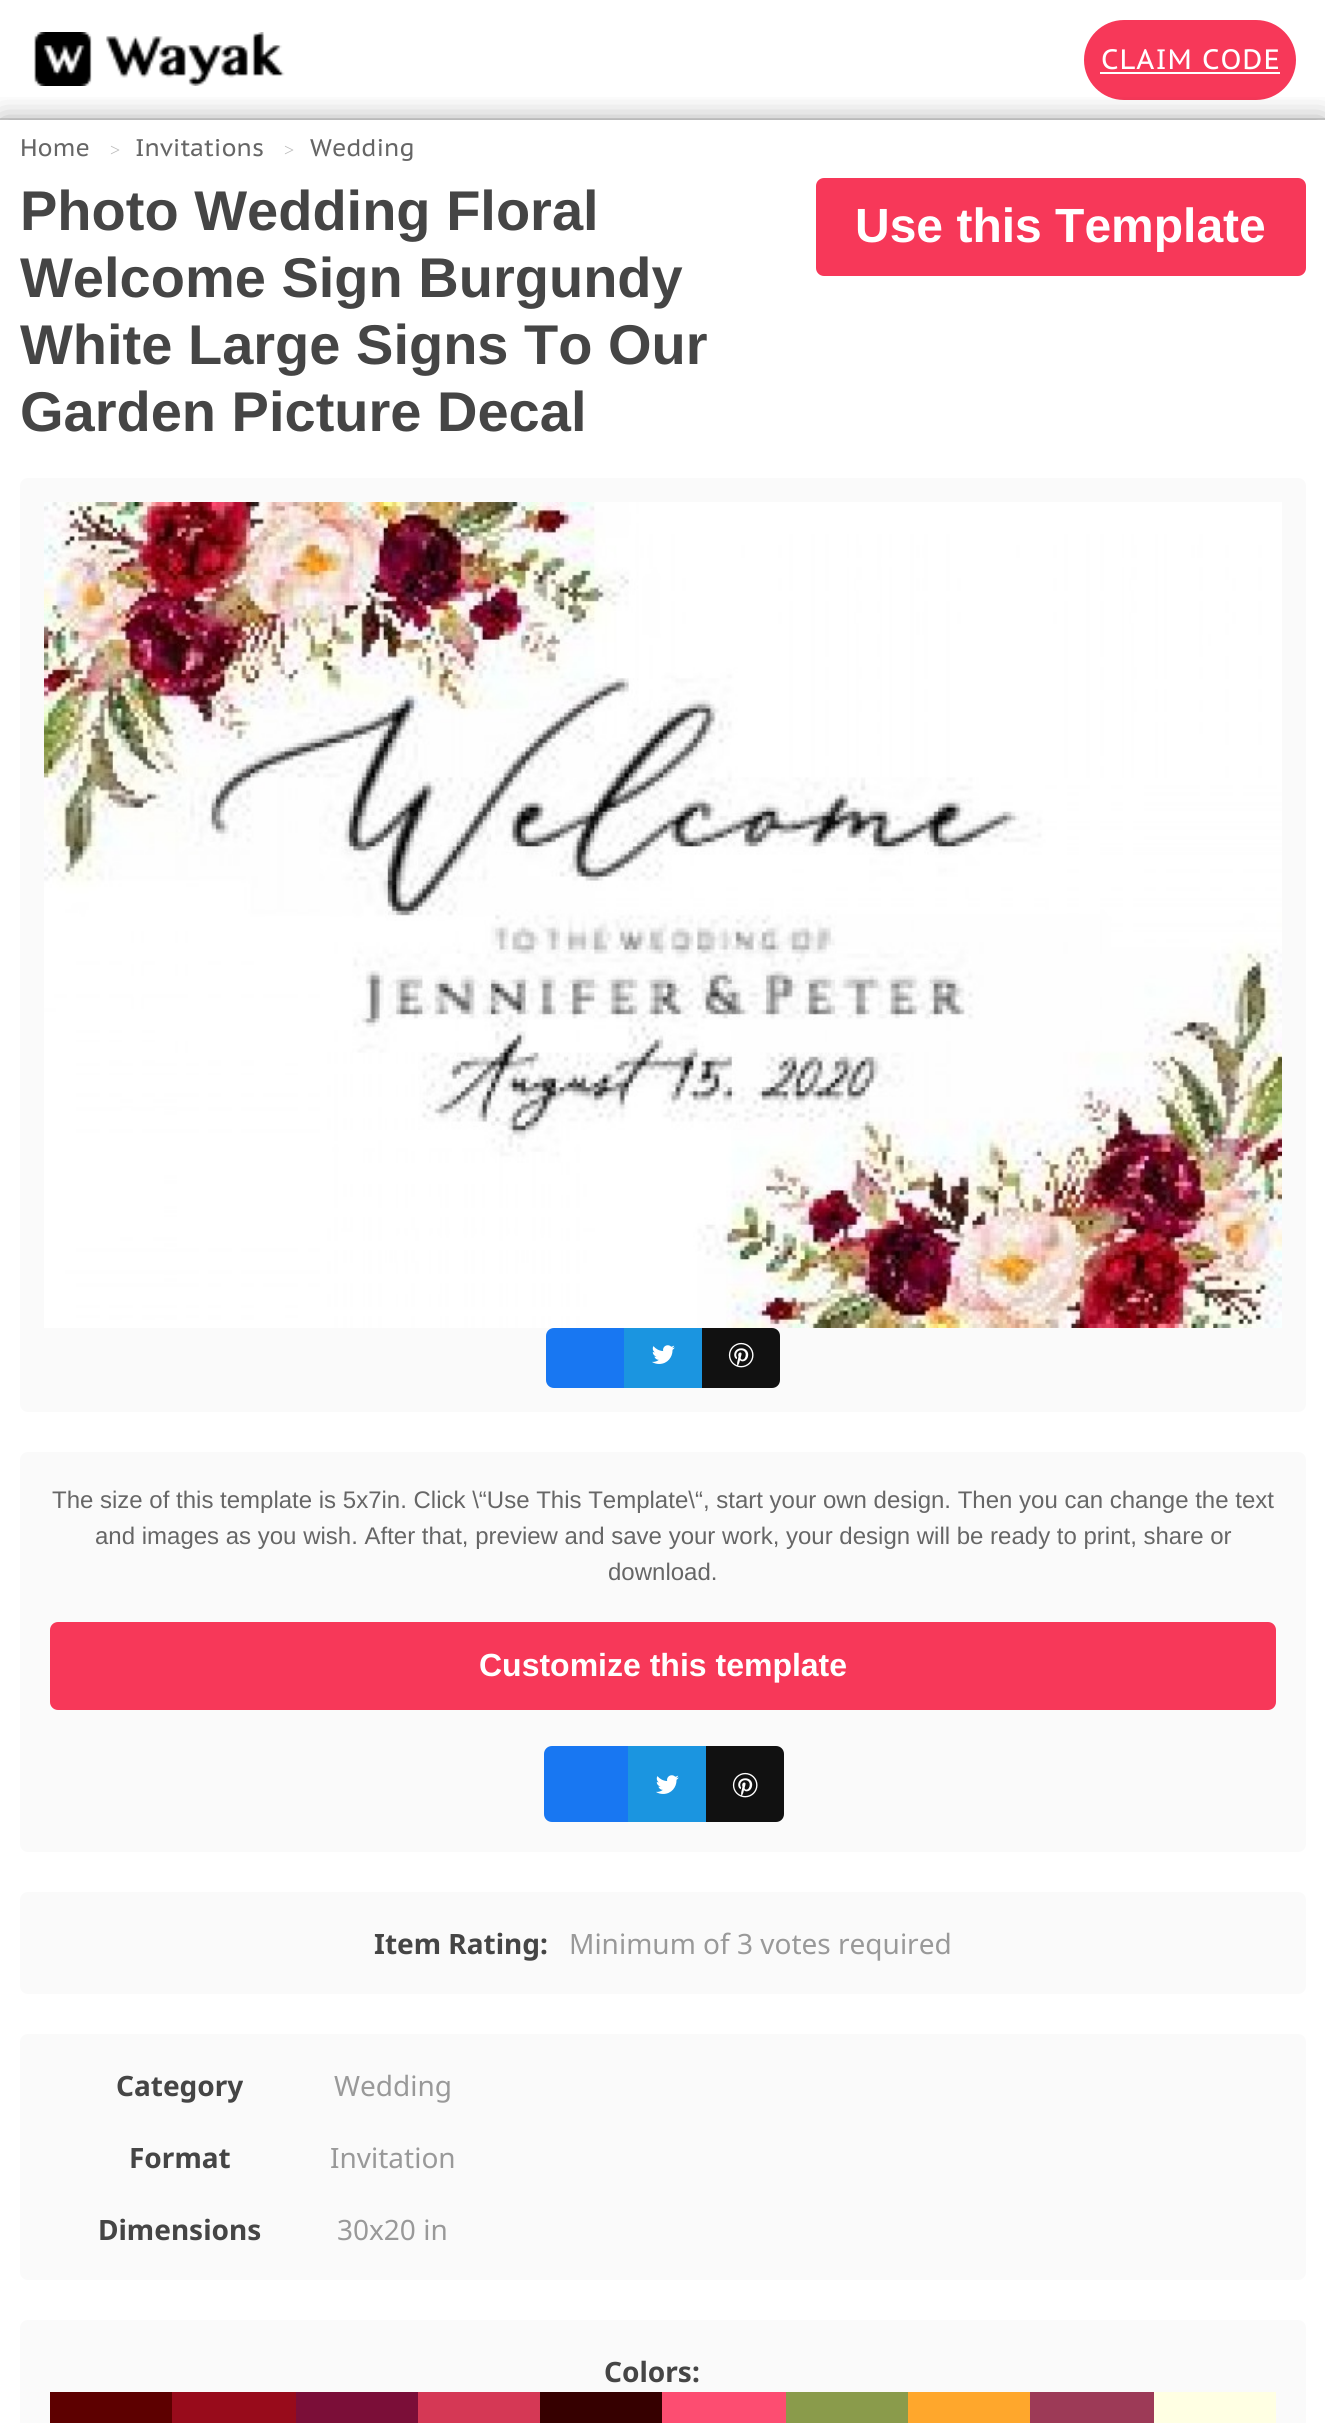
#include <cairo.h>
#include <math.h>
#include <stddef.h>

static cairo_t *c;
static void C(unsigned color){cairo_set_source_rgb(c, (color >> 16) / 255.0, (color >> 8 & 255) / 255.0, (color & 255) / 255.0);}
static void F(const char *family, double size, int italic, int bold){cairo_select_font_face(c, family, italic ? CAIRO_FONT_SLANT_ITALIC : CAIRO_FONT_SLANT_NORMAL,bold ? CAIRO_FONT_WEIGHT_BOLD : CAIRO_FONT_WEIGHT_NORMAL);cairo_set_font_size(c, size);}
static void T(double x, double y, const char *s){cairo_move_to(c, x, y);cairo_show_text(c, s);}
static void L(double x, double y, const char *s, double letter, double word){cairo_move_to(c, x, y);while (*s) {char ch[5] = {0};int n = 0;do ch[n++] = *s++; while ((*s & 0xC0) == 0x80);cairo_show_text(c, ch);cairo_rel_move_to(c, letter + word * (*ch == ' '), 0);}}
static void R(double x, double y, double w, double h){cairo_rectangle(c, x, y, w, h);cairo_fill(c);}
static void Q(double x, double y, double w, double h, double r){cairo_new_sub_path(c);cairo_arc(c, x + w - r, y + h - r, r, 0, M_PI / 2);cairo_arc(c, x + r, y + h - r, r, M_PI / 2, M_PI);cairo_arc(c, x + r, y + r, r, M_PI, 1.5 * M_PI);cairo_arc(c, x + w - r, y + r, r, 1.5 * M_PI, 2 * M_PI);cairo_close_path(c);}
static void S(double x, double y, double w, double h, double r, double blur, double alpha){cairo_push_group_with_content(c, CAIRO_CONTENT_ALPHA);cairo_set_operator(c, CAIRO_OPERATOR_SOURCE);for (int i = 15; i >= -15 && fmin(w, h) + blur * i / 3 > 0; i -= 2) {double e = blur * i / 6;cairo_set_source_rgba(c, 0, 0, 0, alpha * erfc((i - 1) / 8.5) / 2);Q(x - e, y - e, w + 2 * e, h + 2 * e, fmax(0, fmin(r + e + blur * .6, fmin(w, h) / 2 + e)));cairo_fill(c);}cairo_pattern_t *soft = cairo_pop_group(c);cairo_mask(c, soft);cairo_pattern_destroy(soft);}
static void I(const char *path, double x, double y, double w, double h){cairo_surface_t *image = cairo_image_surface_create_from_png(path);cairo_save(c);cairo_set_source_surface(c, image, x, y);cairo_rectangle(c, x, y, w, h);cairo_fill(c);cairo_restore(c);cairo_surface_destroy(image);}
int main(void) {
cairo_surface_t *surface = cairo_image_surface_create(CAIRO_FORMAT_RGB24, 1325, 2423);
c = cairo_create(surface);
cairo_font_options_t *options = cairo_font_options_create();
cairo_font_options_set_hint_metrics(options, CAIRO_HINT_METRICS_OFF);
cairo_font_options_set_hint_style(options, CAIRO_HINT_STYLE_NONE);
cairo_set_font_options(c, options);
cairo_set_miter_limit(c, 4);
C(0xffffff);
cairo_paint(c);
C(0xe0e0e0);
R(0,118,1325,2);
I("1.png",34,32,251,54);
C(0xf73859);
Q(1084,20,212,80,40);
cairo_fill(c);
F("PT Sans Caption",28,0,0);
C(0xffffff);
L(1101,69,"CLAIM CODE",1,0);
R(1100,72,180,2);
cairo_save(c);
cairo_rectangle(c,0,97,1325,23);
cairo_clip(c);
C(0x000000);
S(2,122,1322,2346,0,15,.4);
cairo_restore(c);
F("PT Sans Caption",24,0,0);
C(0x666666);
T(20,156,"Home");
F("Liberation Serif",18,0,0);
C(0xbababa);
T(110,156,">");
F("PT Sans Caption",24,0,0);
C(0x666666);
T(135,156,"Invitations");
F("Liberation Serif",18,0,0);
C(0xbababa);
T(284,156,">");
F("PT Sans Caption",24,0,0);
C(0x666666);
T(310,156,"Wedding");
F("Liberation Sans",56,0,1);
C(0x454545);
T(20,230,"Photo Wedding Floral");
T(20,297,"Welcome Sign Burgundy");
T(20,364,"White Large Signs To Our");
T(20,431,"Garden Picture Decal");
C(0xf73859);
Q(816,178,490,98,8);
cairo_fill(c);
F("Liberation Sans",48,0,1);
C(0xffffff);
T(855,242,"Use this Template");
C(0xfafafa);
Q(20,478,1286,934,8);
cairo_fill(c);
I("2.png",44,502,1238,826);
C(0x1877f2);
cairo_new_path(c);
cairo_move_to(c,554,1328);
cairo_line_to(c,624,1328);
cairo_line_to(c,624,1388);
cairo_line_to(c,554,1388);
cairo_curve_to(c,549.5,1388,546,1384.5,546,1380);
cairo_line_to(c,546,1336);
cairo_curve_to(c,546,1331.5,549.5,1328,554,1328);
cairo_close_path(c);
cairo_fill(c);
C(0x1b95e0);
R(624,1328,78,60);
I("3.png",652,1345,23,19);
C(0x111111);
cairo_new_path(c);
cairo_move_to(c,702,1328);
cairo_line_to(c,772,1328);
cairo_curve_to(c,776.5,1328,780,1331.5,780,1336);
cairo_line_to(c,780,1380);
cairo_curve_to(c,780,1384.5,776.5,1388,772,1388);
cairo_line_to(c,702,1388);
cairo_close_path(c);
cairo_fill(c);
I("4.png",728,1342,26,26);
C(0xfafafa);
Q(20,1452,1286,400,8);
cairo_fill(c);
F("Liberation Sans",24,0,0);
C(0x666666);
T(52,1508,"The size of this template is 5x7in. Click \\“Use This Template\\“, start your own design. Then you can change the text");
T(95,1544,"and images as you wish. After that, preview and save your work, your design will be ready to print, share or");
T(608,1580,"download.");
C(0xf73859);
Q(50,1622,1226,88,8);
cairo_fill(c);
F("Liberation Sans",32,0,1);
C(0xffffff);
T(479,1676,"Customize this template");
C(0x1877f2);
cairo_new_path(c);
cairo_move_to(c,552,1746);
cairo_line_to(c,628,1746);
cairo_line_to(c,628,1822);
cairo_line_to(c,552,1822);
cairo_curve_to(c,547.5,1822,544,1818.5,544,1814);
cairo_line_to(c,544,1754);
cairo_curve_to(c,544,1749.5,547.5,1746,552,1746);
cairo_close_path(c);
cairo_fill(c);
C(0x1b95e0);
R(628,1746,78,76);
I("3.png",656,1775,23,19);
C(0x111111);
cairo_new_path(c);
cairo_move_to(c,706,1746);
cairo_line_to(c,776,1746);
cairo_curve_to(c,780.5,1746,784,1749.5,784,1754);
cairo_line_to(c,784,1814);
cairo_curve_to(c,784,1818.5,780.5,1822,776,1822);
cairo_line_to(c,706,1822);
cairo_close_path(c);
cairo_fill(c);
I("4.png",732,1772,26,26);
C(0xfafafa);
Q(20,1892,1286,102,8);
cairo_fill(c);
F("Noto Sans",28,0,1);
C(0x454545);
T(374,1954,"Item Rating:");
F("Noto Sans",28,0,0);
C(0x999999);
T(569,1954,"Minimum of 3 votes required");
C(0xfafafa);
Q(20,2034,1286,246,8);
cairo_fill(c);
F("Noto Sans",28,0,1);
C(0x454545);
T(116,2096,"Category");
F("Noto Sans",28,0,0);
C(0x999999);
T(334,2096,"Wedding");
F("Noto Sans",28,0,1);
C(0x454545);
T(129,2168,"Format");
F("Noto Sans",28,0,0);
C(0x999999);
T(330,2168,"Invitation");
F("Noto Sans",28,0,1);
C(0x454545);
T(98,2240,"Dimensions");
F("Noto Sans",28,0,0);
C(0x999999);
T(337,2240,"30x20 in");
C(0xfafafa);
Q(20,2320,1286,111,8);
cairo_fill(c);
F("Noto Sans",28,0,1);
C(0x454545);
T(604,2382,"Colors:");
C(0x5d0000);
R(50,2392,122,31);
C(0x980b1b);
R(172,2392,124,31);
C(0x7b0e38);
R(296,2392,122,31);
C(0xd53855);
R(418,2392,122,31);
C(0x360000);
R(540,2392,122,31);
C(0xfd4d71);
R(662,2392,124,31);
C(0x8a9b4b);
R(786,2392,122,31);
C(0xffa72c);
R(908,2392,122,31);
C(0x9d3a57);
R(1030,2392,124,31);
C(0xffffe3);
R(1154,2392,122,31);
cairo_surface_write_to_png(surface, "o.png");
cairo_font_options_destroy(options);
cairo_destroy(c);
cairo_surface_destroy(surface);
return 0;
}
